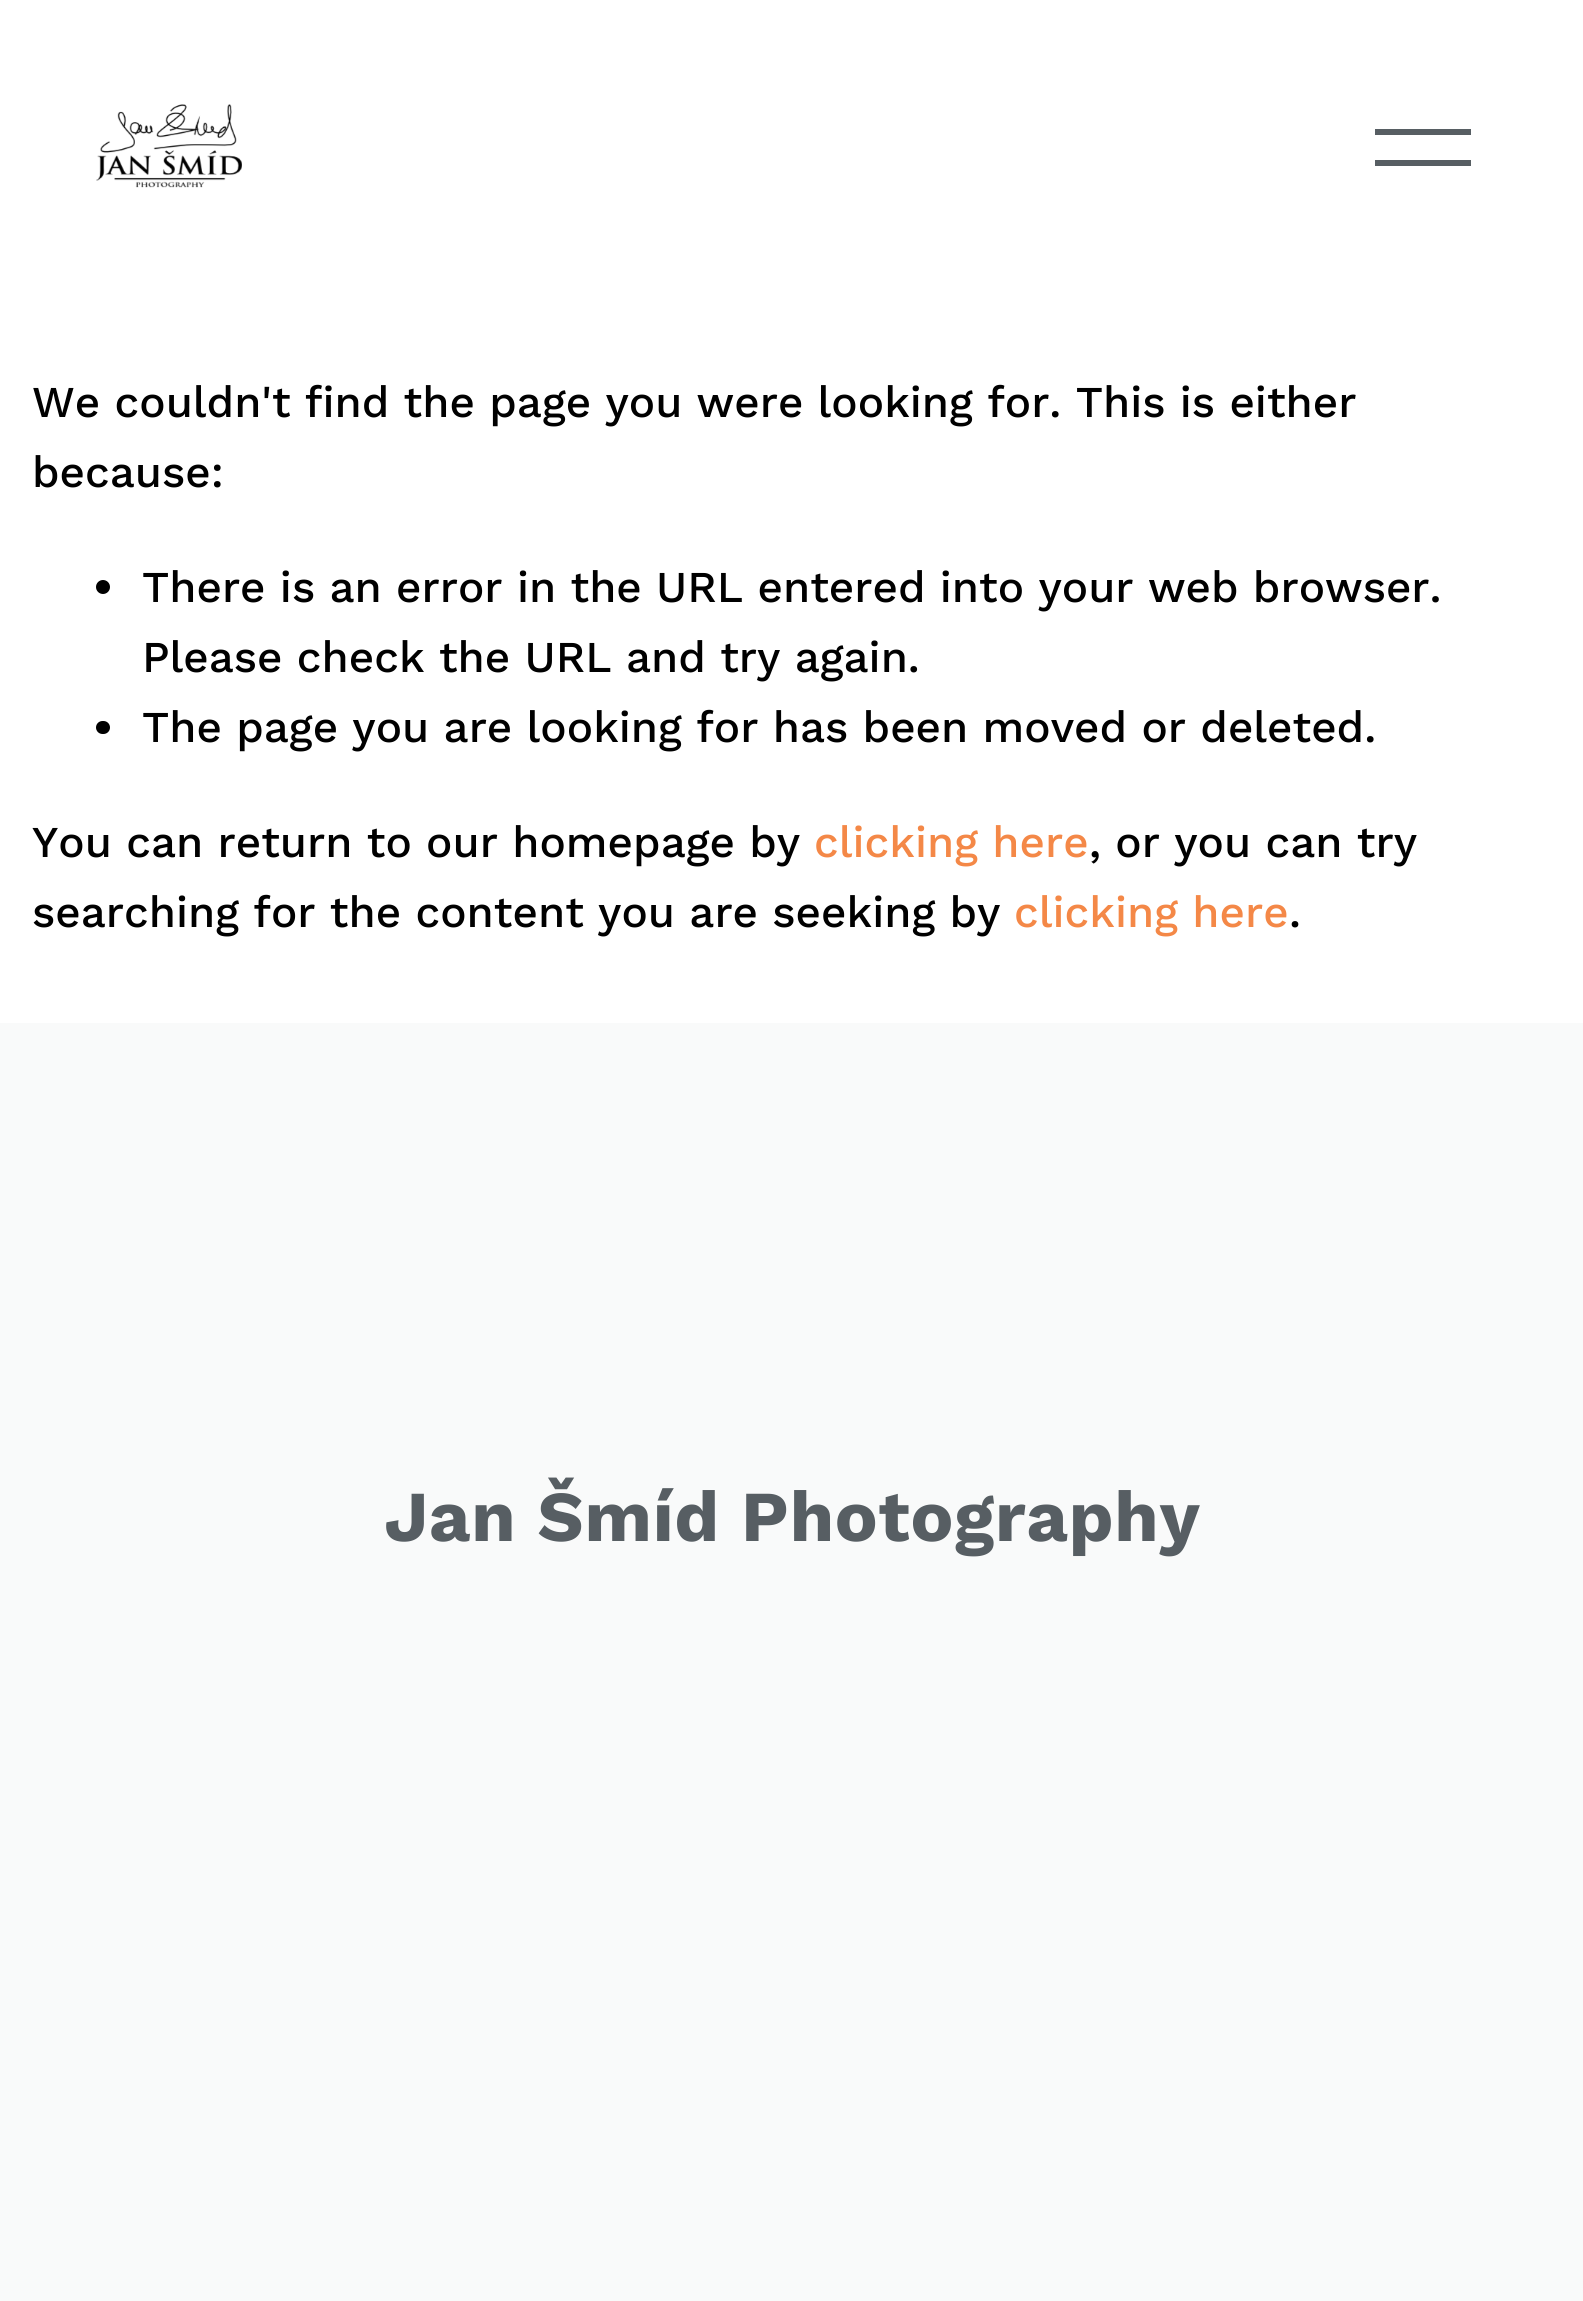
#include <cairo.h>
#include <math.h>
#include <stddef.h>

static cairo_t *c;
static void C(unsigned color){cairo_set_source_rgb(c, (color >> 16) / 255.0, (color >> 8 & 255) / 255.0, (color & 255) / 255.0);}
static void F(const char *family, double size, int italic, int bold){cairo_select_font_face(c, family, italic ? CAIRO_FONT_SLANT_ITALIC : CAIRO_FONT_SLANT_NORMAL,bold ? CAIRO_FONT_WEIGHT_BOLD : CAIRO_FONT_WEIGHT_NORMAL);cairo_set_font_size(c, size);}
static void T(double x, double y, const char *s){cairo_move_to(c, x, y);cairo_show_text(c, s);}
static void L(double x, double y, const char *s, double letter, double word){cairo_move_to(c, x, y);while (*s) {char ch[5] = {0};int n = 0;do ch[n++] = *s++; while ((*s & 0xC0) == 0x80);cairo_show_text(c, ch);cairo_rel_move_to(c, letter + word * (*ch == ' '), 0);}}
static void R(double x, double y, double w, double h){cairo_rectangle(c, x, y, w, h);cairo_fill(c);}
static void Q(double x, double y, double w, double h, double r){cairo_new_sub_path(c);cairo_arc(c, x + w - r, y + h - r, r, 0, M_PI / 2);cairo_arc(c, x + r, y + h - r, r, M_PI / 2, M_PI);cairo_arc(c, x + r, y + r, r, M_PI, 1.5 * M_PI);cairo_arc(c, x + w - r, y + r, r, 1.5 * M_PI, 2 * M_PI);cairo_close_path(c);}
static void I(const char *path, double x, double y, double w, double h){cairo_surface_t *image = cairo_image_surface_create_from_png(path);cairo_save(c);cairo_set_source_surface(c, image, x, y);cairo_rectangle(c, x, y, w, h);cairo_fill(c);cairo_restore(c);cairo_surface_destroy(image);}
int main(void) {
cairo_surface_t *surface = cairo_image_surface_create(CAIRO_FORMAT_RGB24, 1583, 2301);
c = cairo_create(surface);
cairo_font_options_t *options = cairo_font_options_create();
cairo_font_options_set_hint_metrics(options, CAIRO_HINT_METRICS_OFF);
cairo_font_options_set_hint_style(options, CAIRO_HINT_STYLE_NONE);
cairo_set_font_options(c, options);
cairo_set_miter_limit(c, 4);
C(0xffffff);
cairo_paint(c);
I("1.png",96,104,146,84);
C(0x575e63);
R(1375,129,96,6);
R(1375,160,96,6);
F("Work Sans Medium",44,0,0);
C(0x000000);
T(32,417,"We couldn't find the page you were looking for. This is either");
T(32,487,"because:");
cairo_new_path(c);
cairo_arc(c,103,587,7,0,2 * M_PI);
cairo_fill(c);
T(142,602,"There is an error in the URL entered into your web browser.");
T(142,672,"Please check the URL and try again.");
Q(96,721,14,13,6.5);
cairo_fill(c);
T(142,742,"The page you are looking for has been moved or deleted.");
T(32,857,"You can return to our homepage by");
C(0xf48847);
T(814,857,"clicking here");
C(0x000000);
T(1089,857,", or you can try");
T(32,927,"searching for the content you are seeking by");
C(0xf48847);
T(1014,927,"clicking here");
C(0x000000);
T(1289,927,".");
C(0xf9fafa);
R(0,1023,1583,1278);
F("Work Sans",71.6,0,1);
C(0x575e63);
L(384,1541,"Jan Šmíd Photography",.75,0);
cairo_surface_write_to_png(surface, "o.png");
cairo_font_options_destroy(options);
cairo_destroy(c);
cairo_surface_destroy(surface);
return 0;
}
